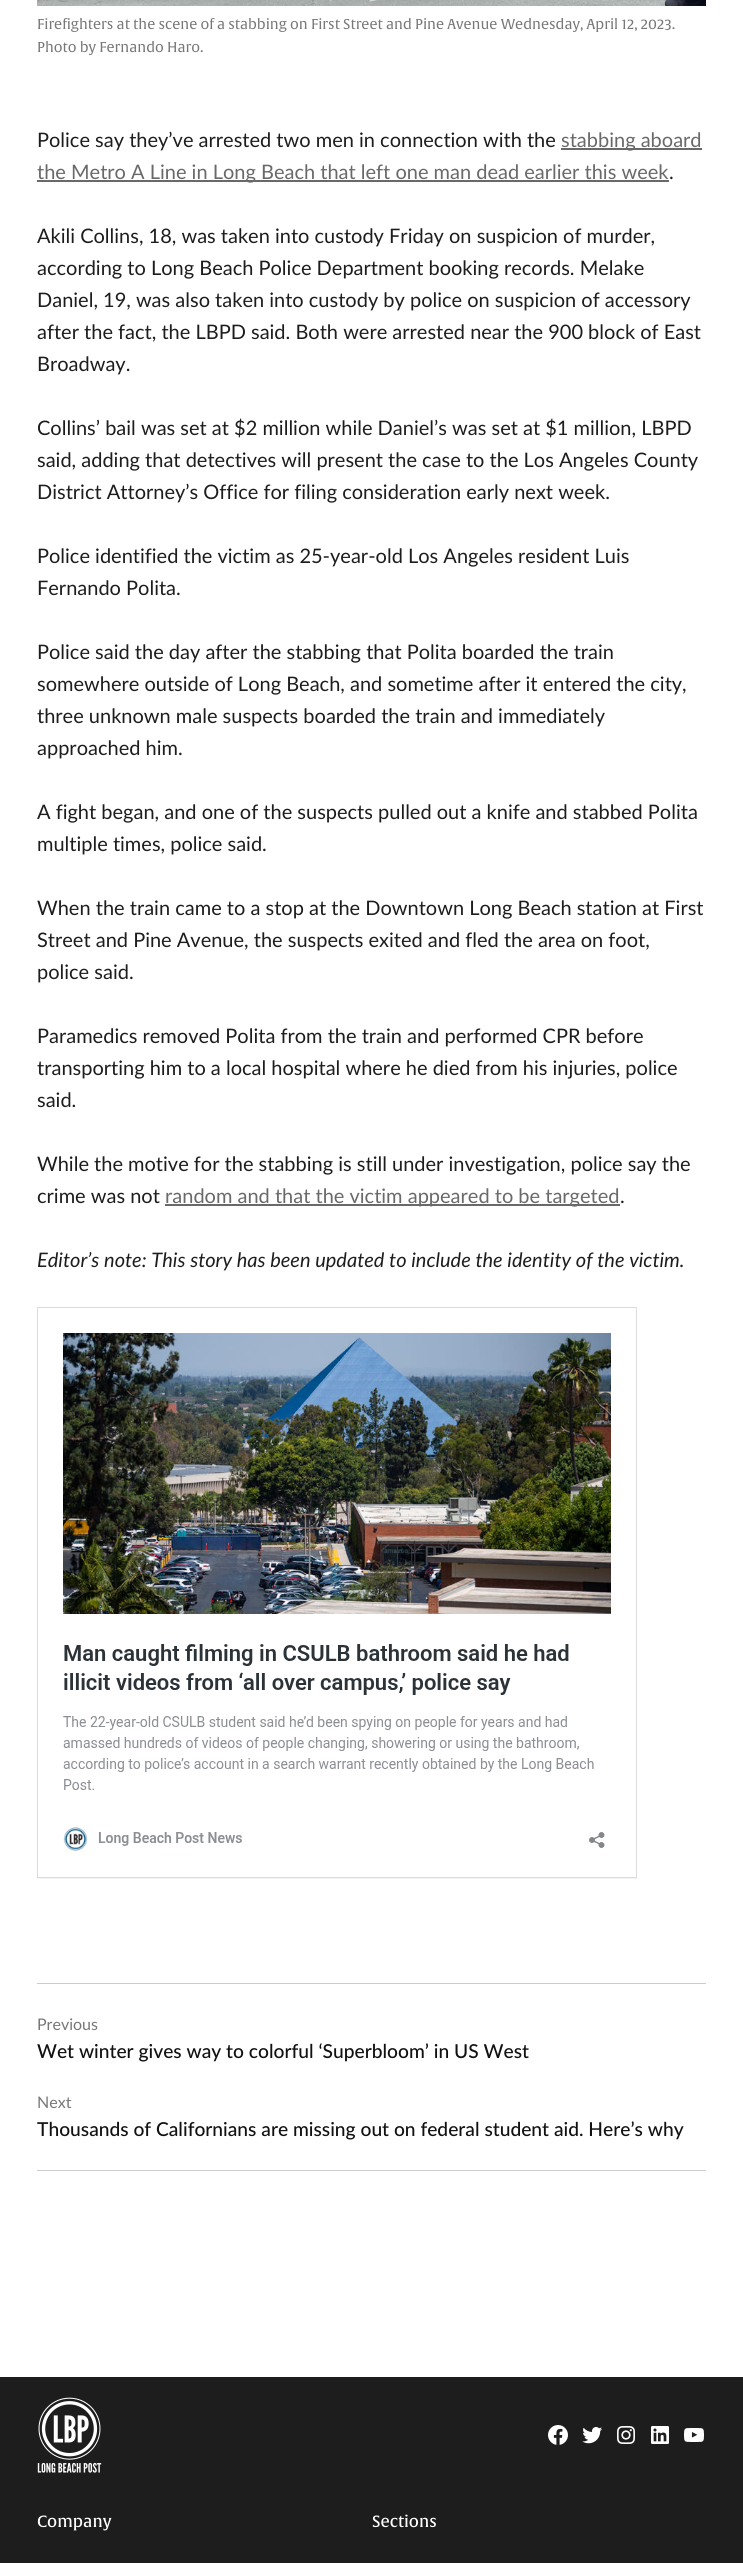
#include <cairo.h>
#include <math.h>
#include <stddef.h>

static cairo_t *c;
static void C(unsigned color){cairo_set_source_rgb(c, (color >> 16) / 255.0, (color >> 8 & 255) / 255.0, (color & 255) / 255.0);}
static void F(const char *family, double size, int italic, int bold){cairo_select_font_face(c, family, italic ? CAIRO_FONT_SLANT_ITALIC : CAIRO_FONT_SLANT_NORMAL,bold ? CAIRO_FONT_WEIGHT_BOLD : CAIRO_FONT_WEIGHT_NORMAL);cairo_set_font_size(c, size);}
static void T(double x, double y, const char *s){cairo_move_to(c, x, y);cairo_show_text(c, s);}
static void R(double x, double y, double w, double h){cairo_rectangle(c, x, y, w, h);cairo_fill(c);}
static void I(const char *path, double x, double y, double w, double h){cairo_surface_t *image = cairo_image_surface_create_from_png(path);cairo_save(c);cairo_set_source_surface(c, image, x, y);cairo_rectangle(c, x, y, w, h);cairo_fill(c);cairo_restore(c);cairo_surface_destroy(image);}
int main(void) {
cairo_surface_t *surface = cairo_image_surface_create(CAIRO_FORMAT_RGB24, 743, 2563);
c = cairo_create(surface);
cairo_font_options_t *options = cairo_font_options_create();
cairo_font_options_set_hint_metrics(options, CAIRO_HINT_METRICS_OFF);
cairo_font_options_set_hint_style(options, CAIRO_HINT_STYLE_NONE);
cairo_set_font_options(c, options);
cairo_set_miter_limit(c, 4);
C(0xffffff);
cairo_paint(c);
I("1.png",37,0,669,6);
F("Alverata",14,0,0);
C(0x777777);
T(37,29,"Firefighters at the scene of a stabbing on First Street and Pine Avenue Wednesday, April 12, 2023.");
T(37,52,"Photo by Fernando Haro.");
F("Lato",20,0,0);
C(0x1d1d1d);
T(37,147,"Police say they’ve arrested two men in connection with the");
C(0x696969);
R(561,148,141,2);
T(561,147,"stabbing aboard");
R(37,180,632,2);
T(37,179,"the Metro A Line in Long Beach that left one man dead earlier this week");
C(0x1d1d1d);
T(669,179,".");
T(37,243,"Akili Collins, 18, was taken into custody Friday on suspicion of murder,");
T(37,275,"according to Long Beach Police Department booking records. Melake");
T(37,307,"Daniel, 19, was also taken into custody by police on suspicion of accessory");
T(37,339,"after the fact, the LBPD said. Both were arrested near the 900 block of East");
T(37,371,"Broadway.");
T(37,435,"Collins’ bail was set at $2 million while Daniel’s was set at $1 million, LBPD");
T(37,467,"said, adding that detectives will present the case to the Los Angeles County");
T(37,499,"District Attorney’s Office for filing consideration early next week.");
T(37,563,"Police identified the victim as 25-year-old Los Angeles resident Luis");
T(37,595,"Fernando Polita.");
T(37,659,"Police said the day after the stabbing that Polita boarded the train");
T(37,691,"somewhere outside of Long Beach, and sometime after it entered the city,");
T(37,723,"three unknown male suspects boarded the train and immediately");
T(37,755,"approached him.");
T(37,819,"A fight began, and one of the suspects pulled out a knife and stabbed Polita");
T(37,851,"multiple times, police said.");
T(37,915,"When the train came to a stop at the Downtown Long Beach station at First");
T(37,947,"Street and Pine Avenue, the suspects exited and fled the area on foot,");
T(37,979,"police said.");
T(37,1043,"Paramedics removed Polita from the train and performed CPR before");
T(37,1075,"transporting him to a local hospital where he died from his injuries, police");
T(37,1107,"said.");
T(37,1171,"While the motive for the stabbing is still under investigation, police say the");
T(37,1203,"crime was not");
C(0x696969);
R(165,1204,455,2);
T(165,1203,"random and that the victim appeared to be targeted");
C(0x1d1d1d);
T(620,1203,".");
F("Lato",20,1,0);
T(37,1267,"Editor’s note: This story has been updated to include the identity of the victim.");
I("2.png",37,1307,600,572);
C(0xcccccc);
R(37,1983,669,1);
R(37,2170,669,1);
F("Lato",16,0,0);
C(0x777777);
T(37,2030,"Previous");
F("Lato Medium",19.2,0,0);
C(0x111111);
T(37,2058,"Wet winter gives way to colorful ‘Superbloom’ in US West");
F("Lato",16,0,0);
C(0x777777);
T(37,2108,"Next");
F("Lato Medium",19.2,0,0);
C(0x111111);
T(37,2136,"Thousands of Californians are missing out on federal student aid. Here’s why");
C(0x1d1d1d);
R(0,2377,743,186);
I("3.png",37,2397,65,76);
I("4.png",548,2425,20,20);
I("5.png",582,2427,20,17);
I("6.png",617,2426,18,18);
I("7.png",651,2426,18,18);
I("8.png",684,2428,20,14);
F("Alverata Medium",16,0,0);
C(0xffffff);
T(37,2527,"Company");
T(372,2527,"Sections");
cairo_surface_write_to_png(surface, "o.png");
cairo_font_options_destroy(options);
cairo_destroy(c);
cairo_surface_destroy(surface);
return 0;
}
